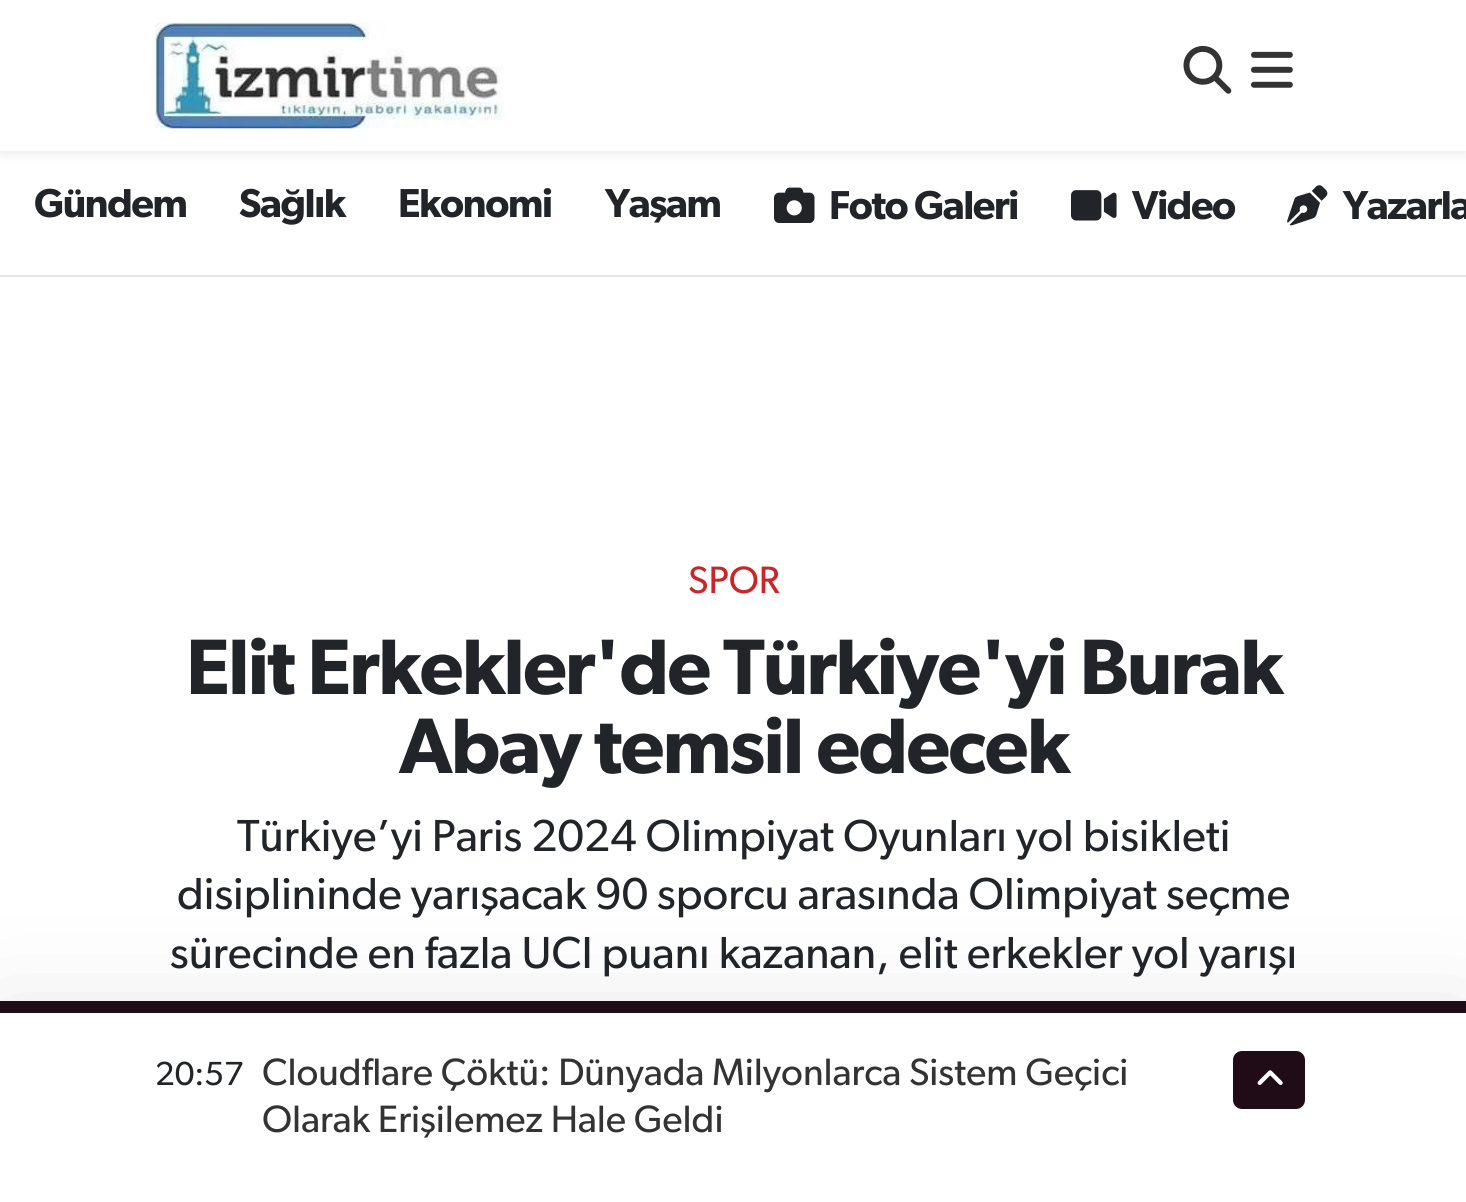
#include <cairo.h>
#include <math.h>
#include <stddef.h>

static cairo_t *c;
static void C(unsigned color){cairo_set_source_rgb(c, (color >> 16) / 255.0, (color >> 8 & 255) / 255.0, (color & 255) / 255.0);}
static void F(const char *family, double size, int italic, int bold){cairo_select_font_face(c, family, italic ? CAIRO_FONT_SLANT_ITALIC : CAIRO_FONT_SLANT_NORMAL,bold ? CAIRO_FONT_WEIGHT_BOLD : CAIRO_FONT_WEIGHT_NORMAL);cairo_set_font_size(c, size);}
static void T(double x, double y, const char *s){cairo_move_to(c, x, y);cairo_show_text(c, s);}
static void L(double x, double y, const char *s, double letter, double word){cairo_move_to(c, x, y);while (*s) {char ch[5] = {0};int n = 0;do ch[n++] = *s++; while ((*s & 0xC0) == 0x80);cairo_show_text(c, ch);cairo_rel_move_to(c, letter + word * (*ch == ' '), 0);}}
static void R(double x, double y, double w, double h){cairo_rectangle(c, x, y, w, h);cairo_fill(c);}
static void Q(double x, double y, double w, double h, double r){cairo_new_sub_path(c);cairo_arc(c, x + w - r, y + h - r, r, 0, M_PI / 2);cairo_arc(c, x + r, y + h - r, r, M_PI / 2, M_PI);cairo_arc(c, x + r, y + r, r, M_PI, 1.5 * M_PI);cairo_arc(c, x + w - r, y + r, r, 1.5 * M_PI, 2 * M_PI);cairo_close_path(c);}
static void S(double x, double y, double w, double h, double r, double blur, double alpha){cairo_push_group_with_content(c, CAIRO_CONTENT_ALPHA);cairo_set_operator(c, CAIRO_OPERATOR_SOURCE);for (int i = 15; i >= -15 && fmin(w, h) + blur * i / 3 > 0; i -= 2) {double e = blur * i / 6;cairo_set_source_rgba(c, 0, 0, 0, alpha * erfc((i - 1) / 8.5) / 2);Q(x - e, y - e, w + 2 * e, h + 2 * e, fmax(0, fmin(r + e + blur * .6, fmin(w, h) / 2 + e)));cairo_fill(c);}cairo_pattern_t *soft = cairo_pop_group(c);cairo_mask(c, soft);cairo_pattern_destroy(soft);}
static void I(const char *path, double x, double y, double w, double h){cairo_surface_t *image = cairo_image_surface_create_from_png(path);cairo_save(c);cairo_set_source_surface(c, image, x, y);cairo_rectangle(c, x, y, w, h);cairo_fill(c);cairo_restore(c);cairo_surface_destroy(image);}
int main(void) {
cairo_surface_t *surface = cairo_image_surface_create(CAIRO_FORMAT_RGB24, 1466, 1202);
c = cairo_create(surface);
cairo_font_options_t *options = cairo_font_options_create();
cairo_font_options_set_hint_metrics(options, CAIRO_HINT_METRICS_OFF);
cairo_font_options_set_hint_style(options, CAIRO_HINT_STYLE_NONE);
cairo_set_font_options(c, options);
cairo_set_miter_limit(c, 4);
C(0xffffff);
cairo_paint(c);
C(0x000000);
S(0,5,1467,150,0,5,.07);
C(0xffffff);
R(0,0,1466,151);
I("1.png",155,22,349,107);
I("2.png",1183,45,49,49);
I("3.png",1251,51,42,37);
C(0xe6e6e6);
R(0,275,1466,2);
F("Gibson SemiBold",40.5,0,0);
C(0x212529);
L(34,217,"Gündem",-1.4,0);
L(239,217,"Sağlık",-1.4,0);
L(398,217,"Ekonomi",-1.4,0);
L(605,217,"Yaşam",-1.4,0);
I("4.png",774,187,41,36);
L(829,219,"Foto Galeri",-1.4,0);
I("5.png",1071,190,46,31);
L(1132,219,"Video",-1.4,0);
I("6.png",1287,185,41,41);
L(1343,219,"Yazarla",-1.4,0);
F("Gibson",38.25,0,0);
C(0xca2527);
T(688,593,"SPOR");
F("Gibson SemiBold",78.75,0,0);
C(0x212529);
L(186,694,"Elit Erkekler'de Türkiye'yi Burak",-1.8,0);
L(399,773,"Abay temsil edecek",-1.8,0);
F("Gibson",45,0,0);
T(237,851,"Türkiye’yi Paris 2024 Olimpiyat Oyunları yol bisikleti");
T(177,909,"disiplininde yarışacak 90 sporcu arasında Olimpiyat seçme");
T(170,968,"sürecinde en fazla UCI puanı kazanan, elit erkekler yol yarışı");
C(0x000000);
S(0,1040,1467,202,0,57.5,.18);
C(0xffffff);
R(0,1013,1466,189);
C(0x200c16);
R(0,1001,1466,12);
F("Gibson",33.5,0,0);
C(0x212529);
T(155,1085,"20:57");
F("Gibson",38.25,0,0);
C(0x333333);
T(262,1085,"Cloudflare Çöktü: Dünyada Milyonlarca Sistem Geçici");
T(262,1132,"Olarak Erişilemez Hale Geldi");
C(0x200c16);
Q(1234,1052,70,56,8);
cairo_fill_preserve(c);
cairo_stroke(c);
I("7.png",1257,1070,26,15);
cairo_surface_write_to_png(surface, "o.png");
cairo_font_options_destroy(options);
cairo_destroy(c);
cairo_surface_destroy(surface);
return 0;
}
